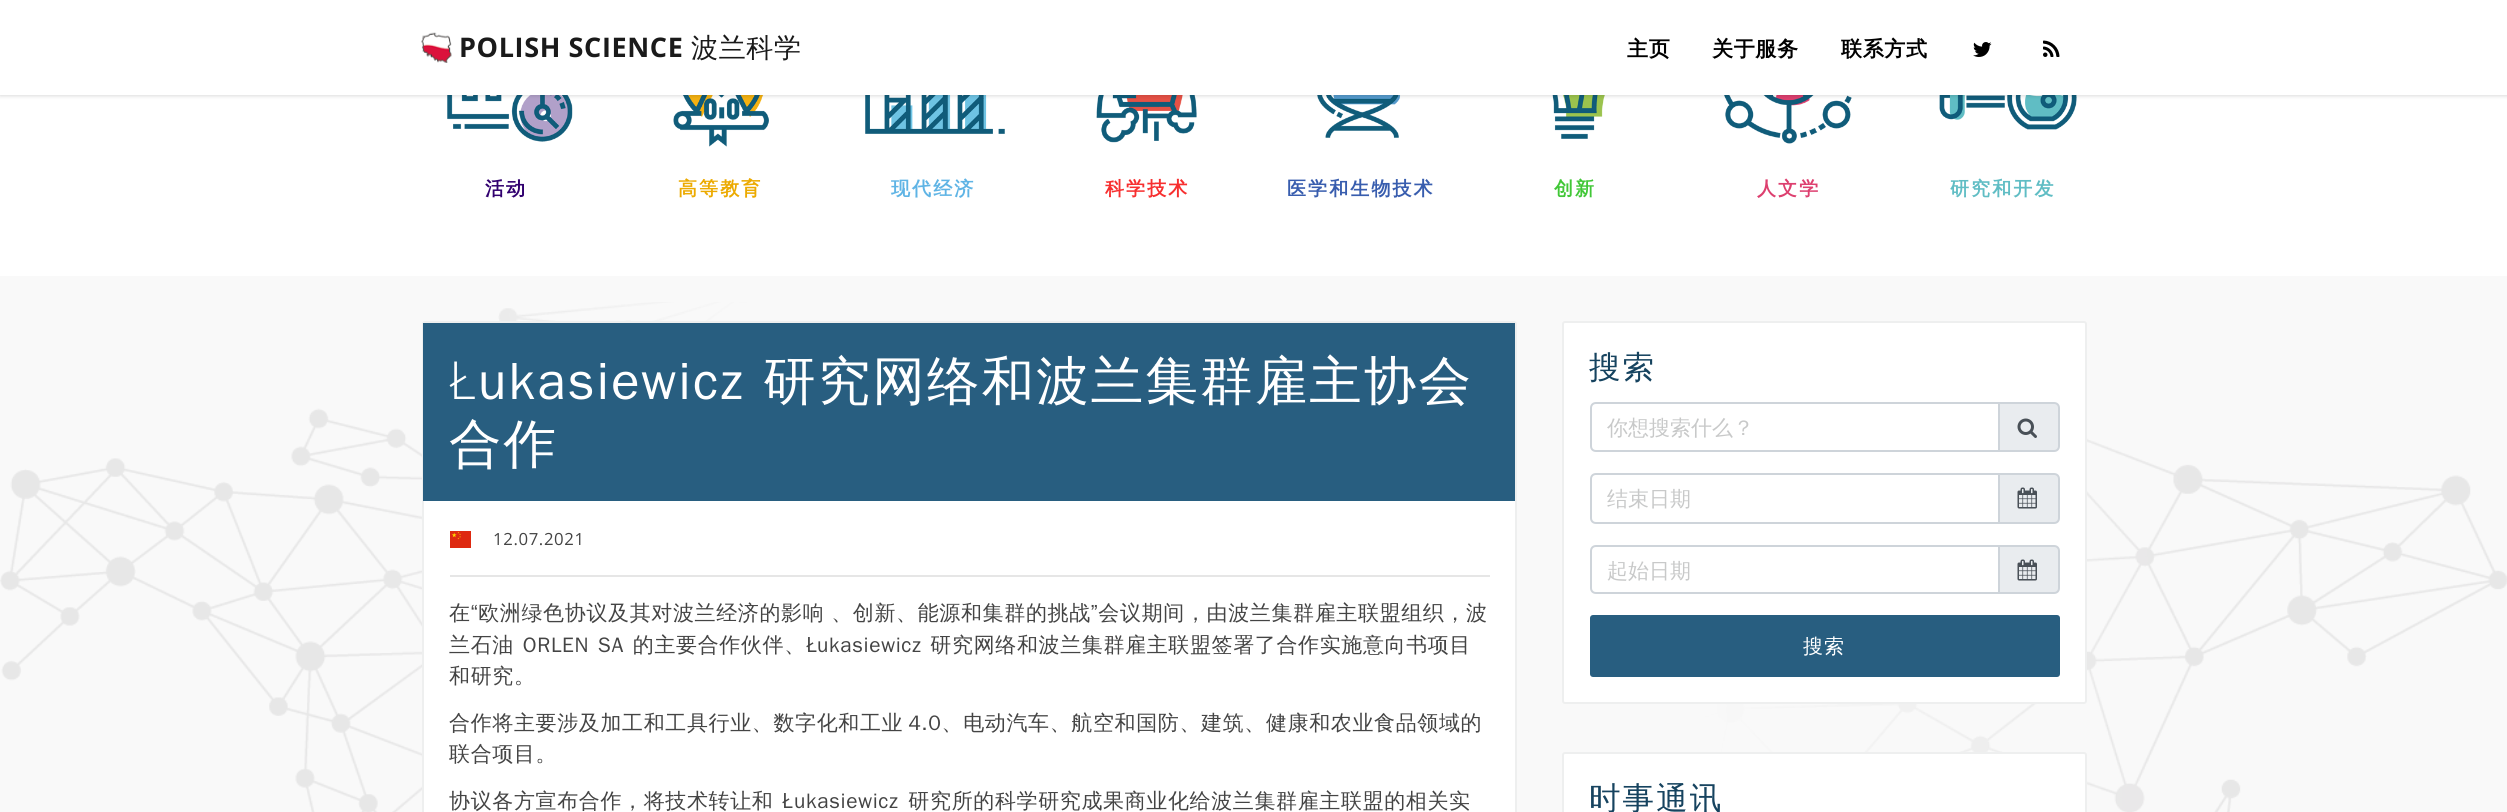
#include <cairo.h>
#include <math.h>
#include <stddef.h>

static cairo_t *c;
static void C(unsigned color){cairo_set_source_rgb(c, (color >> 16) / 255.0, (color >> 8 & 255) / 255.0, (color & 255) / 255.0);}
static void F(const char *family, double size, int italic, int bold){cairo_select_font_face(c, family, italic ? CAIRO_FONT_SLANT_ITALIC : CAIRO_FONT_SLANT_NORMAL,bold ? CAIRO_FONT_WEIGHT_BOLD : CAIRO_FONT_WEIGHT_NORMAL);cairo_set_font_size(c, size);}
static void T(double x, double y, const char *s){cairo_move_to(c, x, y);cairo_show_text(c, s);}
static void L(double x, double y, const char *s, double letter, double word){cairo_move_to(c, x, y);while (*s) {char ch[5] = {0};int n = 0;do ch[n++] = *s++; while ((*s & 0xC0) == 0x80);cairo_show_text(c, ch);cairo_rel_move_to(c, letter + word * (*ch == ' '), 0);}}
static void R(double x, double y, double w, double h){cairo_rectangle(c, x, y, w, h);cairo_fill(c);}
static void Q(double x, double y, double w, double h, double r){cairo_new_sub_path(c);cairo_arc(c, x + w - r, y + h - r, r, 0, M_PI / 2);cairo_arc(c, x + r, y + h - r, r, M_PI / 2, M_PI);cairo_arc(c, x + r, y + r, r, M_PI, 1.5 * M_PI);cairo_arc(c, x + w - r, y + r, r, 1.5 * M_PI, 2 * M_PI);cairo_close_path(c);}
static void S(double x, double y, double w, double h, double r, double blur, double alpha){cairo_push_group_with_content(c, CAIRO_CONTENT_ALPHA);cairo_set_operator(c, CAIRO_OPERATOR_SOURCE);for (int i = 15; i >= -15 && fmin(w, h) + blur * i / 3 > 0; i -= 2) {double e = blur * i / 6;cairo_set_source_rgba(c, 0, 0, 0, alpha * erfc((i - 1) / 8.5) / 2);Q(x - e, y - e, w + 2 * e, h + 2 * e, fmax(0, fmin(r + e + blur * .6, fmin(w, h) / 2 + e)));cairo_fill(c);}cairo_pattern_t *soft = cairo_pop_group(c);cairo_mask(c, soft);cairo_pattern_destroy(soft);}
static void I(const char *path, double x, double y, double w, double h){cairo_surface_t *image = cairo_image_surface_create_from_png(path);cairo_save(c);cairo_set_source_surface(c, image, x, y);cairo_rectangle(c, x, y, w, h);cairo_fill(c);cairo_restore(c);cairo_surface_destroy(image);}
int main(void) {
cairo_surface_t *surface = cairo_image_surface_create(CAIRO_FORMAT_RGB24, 2507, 812);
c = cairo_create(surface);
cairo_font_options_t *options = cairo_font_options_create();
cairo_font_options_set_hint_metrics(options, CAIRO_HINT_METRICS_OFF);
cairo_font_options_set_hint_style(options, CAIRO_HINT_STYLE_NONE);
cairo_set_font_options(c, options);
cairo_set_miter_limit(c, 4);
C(0xffffff);
cairo_paint(c);
I("4.png",447,95,126,47);
I("5.png",673,95,96,52);
I("6.png",865,95,140,39);
I("7.png",1096,95,101,48);
I("8.png",1317,95,84,43);
I("9.png",1552,95,53,44);
I("10.png",1724,95,128,49);
I("11.png",1939,95,138,35);
C(0x000000);
S(0,2,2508,94,0,2,.1);
S(0,2,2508,94,0,2,.05);
C(0xffffff);
R(0,0,2507,95);
I("1.png",421,32,31,31);
F("Open Sans",27,0,1);
C(0x1a1a1a);
L(459,57,"POLISH SCIENCE",.63,0);
F("WenQuanYi Zen Hei Medium",27,0,0);
L(691,57,"波兰科学",.63,0);
F("WenQuanYi Zen Hei",21,0,1);
C(0x000000);
L(1627,56,"主页",.63,0);
L(1712,56,"关于服务",.63,0);
L(1841,56,"联系方式",.63,0);
I("2.png",1973,42,19,15);
I("3.png",2043,40,17,17);
F("WenQuanYi Zen Hei",19,0,1);
C(0x31006f);
L(485,195,"活动",2.1,0);
C(0xecaa00);
L(678,195,"高等教育",2.1,0);
C(0x5fb4e5);
L(891,195,"现代经济",2.1,0);
C(0xf72f2f);
L(1105,195,"科学技术",2.1,0);
C(0x385dae);
L(1287,195,"医学和生物技术",2.1,0);
C(0x41c737);
L(1554,195,"创新",2.1,0);
C(0xdd3f6f);
L(1757,195,"人文学",2.1,0);
C(0x60bdc4);
L(1950,195,"研究和开发",2.1,0);
C(0xf9f9f9);
R(0,276,2507,536);
I("12.png",0,302,2507,510);
C(0xffffff);
Q(423,322,1093,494,2);
cairo_fill_preserve(c);
C(0xeeefef);
cairo_stroke(c);
C(0x285e80);
R(423,323,1092,178);
F("Open Sans Light",52.5,0,0);
C(0xffffff);
L(449,399,"Ł",2.1,0);
F("WenQuanYi Zen Hei Medium",52.5,0,0);
L(478,399,"ukasiewicz 研究网络和波兰集群雇主协会",2.1,1);
L(449,462,"合作",2.1,0);
I("13.png",450,531,21,17);
F("Open Sans",16.75,0,0);
C(0x444444);
L(493,545,"12.07.2021",.63,0);
C(0xe6e6e6);
R(450,575,1040,2);
F("WenQuanYi Zen Hei Medium",21,0,0);
C(0x444444);
L(449,620,"在“欧洲绿色协议及其对波兰经济的影响 、创新、能源和集群的挑战”会议期间，由波兰集群雇主联盟组织，波",.63,0);
L(449,652,"兰石油 ORLEN SA 的主要合作伙伴、",.63,2);
F("Open Sans",21,0,0);
L(806,652,"Ł",.63,0);
F("WenQuanYi Zen Hei Medium",21,0,0);
L(817,652,"ukasiewicz 研究网络和波兰集群雇主联盟签署了合作实施意向书项目",.63,2);
L(449,683,"和研究。",.63,0);
L(449,730,"合作将主要涉及加工和工具行业、数字化和工业 4.0、电动汽车、航空和国防、建筑、健康和农业食品领域的",.63,-2);
L(449,761,"联合项目。",.63,0);
L(449,808,"协议各方宣布合作，将技术转让和",.63,0);
F("Open Sans",21,0,0);
L(782,808,"Ł",.63,0);
F("WenQuanYi Zen Hei Medium",21,0,0);
L(794,808,"ukasiewicz 研究所的科学研究成果商业化给波兰集群雇主联盟的相关实",.63,3);
C(0xffffff);
Q(1563,322,523,381,2);
cairo_fill_preserve(c);
C(0xeeefef);
cairo_stroke(c);
F("WenQuanYi Zen Hei Medium",31.5,0,0);
C(0x16435f);
L(1589,378,"搜索",2.1,0);
C(0xe9ecef);
cairo_new_path(c);
cairo_move_to(c,1999,403);
cairo_line_to(c,2054,403);
cairo_curve_to(c,2057,403,2059,405,2059,408);
cairo_line_to(c,2059,446);
cairo_curve_to(c,2059,449,2057,451,2054,451);
cairo_line_to(c,1999,451);
cairo_close_path(c);
cairo_fill_preserve(c);
C(0xced4da);
cairo_stroke(c);
cairo_new_path(c);
cairo_move_to(c,1596,403);
cairo_line_to(c,1999,403);
cairo_line_to(c,1999,451);
cairo_line_to(c,1596,451);
cairo_curve_to(c,1593,451,1591,449,1591,446);
cairo_line_to(c,1591,408);
cairo_curve_to(c,1591,405,1593,403,1596,403);
cairo_close_path(c);
cairo_stroke(c);
F("WenQuanYi Zen Hei Medium",21,0,0);
C(0xc8c9c9);
T(1607,435,"你想搜索什么？");
I("14.png",2017,418,20,20);
C(0xe9ecef);
cairo_new_path(c);
cairo_move_to(c,1999,474);
cairo_line_to(c,2054,474);
cairo_curve_to(c,2057,474,2059,476,2059,479);
cairo_line_to(c,2059,518);
cairo_curve_to(c,2059,521,2057,523,2054,523);
cairo_line_to(c,1999,523);
cairo_close_path(c);
cairo_fill_preserve(c);
C(0xced4da);
cairo_stroke(c);
cairo_new_path(c);
cairo_move_to(c,1596,474);
cairo_line_to(c,1999,474);
cairo_line_to(c,1999,523);
cairo_line_to(c,1596,523);
cairo_curve_to(c,1593,523,1591,521,1591,518);
cairo_line_to(c,1591,479);
cairo_curve_to(c,1591,476,1593,474,1596,474);
cairo_close_path(c);
cairo_stroke(c);
C(0xc8c9c9);
T(1607,506,"结束日期");
I("15.png",2017,487,20,22);
C(0xe9ecef);
cairo_new_path(c);
cairo_move_to(c,1999,546);
cairo_line_to(c,2054,546);
cairo_curve_to(c,2057,546,2059,548,2059,551);
cairo_line_to(c,2059,588);
cairo_curve_to(c,2059,591,2057,593,2054,593);
cairo_line_to(c,1999,593);
cairo_close_path(c);
cairo_fill_preserve(c);
C(0xced4da);
cairo_stroke(c);
cairo_new_path(c);
cairo_move_to(c,1596,546);
cairo_line_to(c,1999,546);
cairo_line_to(c,1999,593);
cairo_line_to(c,1596,593);
cairo_curve_to(c,1593,593,1591,591,1591,588);
cairo_line_to(c,1591,551);
cairo_curve_to(c,1591,548,1593,546,1596,546);
cairo_close_path(c);
cairo_stroke(c);
C(0xc8c9c9);
T(1607,578,"起始日期");
I("15.png",2017,559,20,22);
C(0x285e80);
Q(1591.5,616.5,467,59,1.5);
cairo_fill_preserve(c);
cairo_set_line_width(c,3);
cairo_stroke(c);
F("WenQuanYi Zen Hei Medium",20,0,0);
C(0xffffff);
L(1803,653,"搜索",1,0);
Q(1563,753,523,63,2);
cairo_fill_preserve(c);
C(0xeeefef);
cairo_set_line_width(c,2);
cairo_stroke(c);
F("WenQuanYi Zen Hei Medium",31.5,0,0);
C(0x16435f);
L(1589,809,"时事通讯",2.1,0);
cairo_surface_write_to_png(surface, "o.png");
cairo_font_options_destroy(options);
cairo_destroy(c);
cairo_surface_destroy(surface);
return 0;
}
